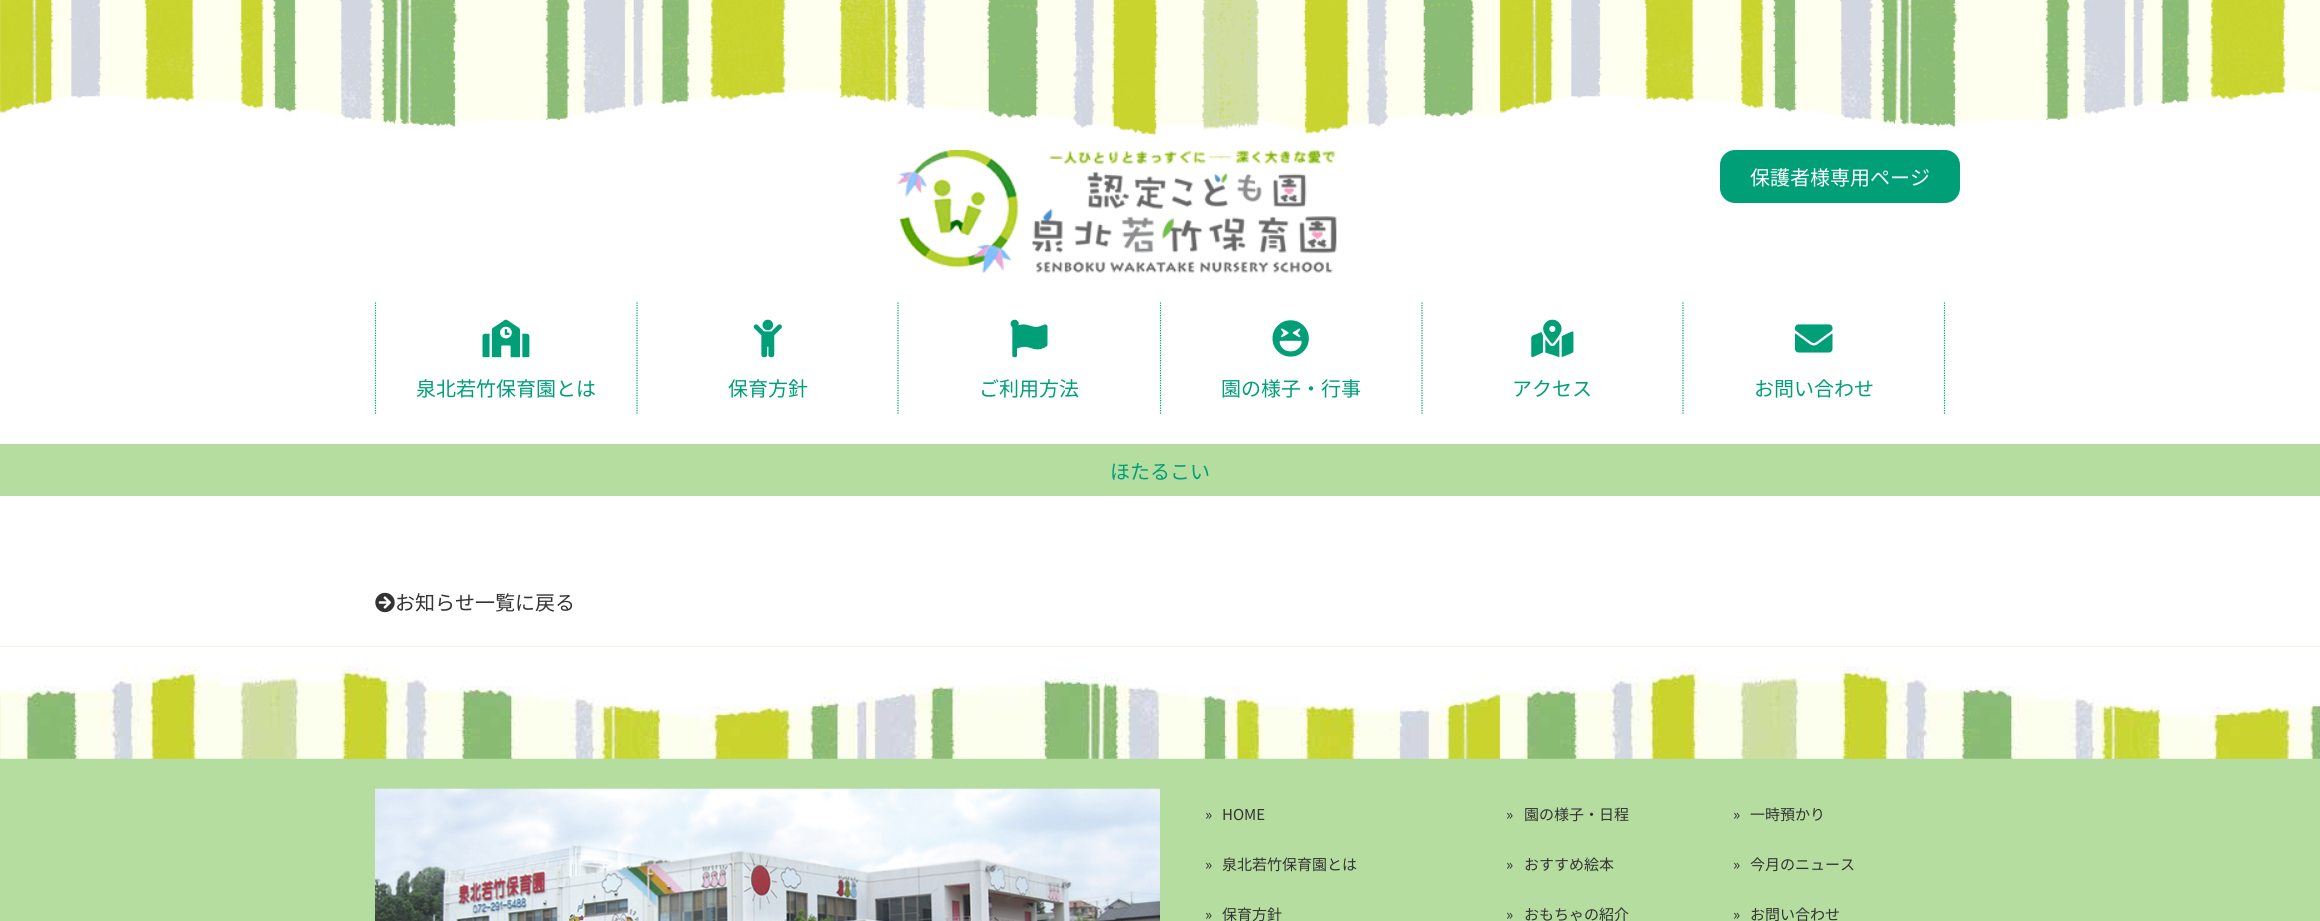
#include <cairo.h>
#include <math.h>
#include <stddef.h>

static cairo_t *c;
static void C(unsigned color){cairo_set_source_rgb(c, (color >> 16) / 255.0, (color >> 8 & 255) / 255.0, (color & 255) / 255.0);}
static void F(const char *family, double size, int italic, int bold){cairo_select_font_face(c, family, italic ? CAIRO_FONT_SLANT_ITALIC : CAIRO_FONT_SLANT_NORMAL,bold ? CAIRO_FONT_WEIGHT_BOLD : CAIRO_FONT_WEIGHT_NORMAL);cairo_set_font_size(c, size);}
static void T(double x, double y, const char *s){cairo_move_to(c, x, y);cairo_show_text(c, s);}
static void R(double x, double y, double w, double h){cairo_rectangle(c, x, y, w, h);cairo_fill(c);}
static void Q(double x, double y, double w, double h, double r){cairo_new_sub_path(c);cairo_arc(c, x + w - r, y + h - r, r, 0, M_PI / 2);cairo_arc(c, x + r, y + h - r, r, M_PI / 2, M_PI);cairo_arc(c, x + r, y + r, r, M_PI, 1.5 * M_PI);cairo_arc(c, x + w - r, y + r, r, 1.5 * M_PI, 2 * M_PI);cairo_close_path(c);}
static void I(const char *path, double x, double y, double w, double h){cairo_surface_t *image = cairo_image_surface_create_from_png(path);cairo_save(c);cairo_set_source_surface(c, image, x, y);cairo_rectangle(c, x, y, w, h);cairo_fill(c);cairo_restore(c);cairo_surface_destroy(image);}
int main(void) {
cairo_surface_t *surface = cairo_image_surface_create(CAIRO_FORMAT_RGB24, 2320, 921);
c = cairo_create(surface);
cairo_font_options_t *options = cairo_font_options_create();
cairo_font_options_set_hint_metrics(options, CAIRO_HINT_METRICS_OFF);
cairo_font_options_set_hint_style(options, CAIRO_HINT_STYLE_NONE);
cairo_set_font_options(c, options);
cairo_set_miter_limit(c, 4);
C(0xffffff);
cairo_paint(c);
I("1.png",0,0,2320,140);
I("2.png",897,150,440,123);
C(0x009f78);
Q(1720,150,240,53,15);
cairo_fill(c);
F("Noto Sans JP",20,0,0);
C(0xffffff);
T(1750,185,"保護者様専用ページ");
cairo_new_path(c);
cairo_move_to(c,375.5,302.5);
cairo_line_to(c,375.5,414);
C(0x009f78);
cairo_set_line_width(c,1.2);
cairo_set_dash(c,(double[]){1.25,1.25},2,0);
cairo_stroke(c);
I("3.png",482,319,48,39);
T(416,396,"泉北若竹保育園とは");
cairo_new_path(c);
cairo_move_to(c,637,302.5);
cairo_line_to(c,637,414);
cairo_stroke(c);
I("4.png",753,319,29,39);
T(728,396,"保育方針");
cairo_new_path(c);
cairo_move_to(c,898,302.5);
cairo_line_to(c,898,414);
cairo_stroke(c);
I("5.png",1010,319,38,39);
T(979,396,"ご利用方法");
cairo_new_path(c);
cairo_move_to(c,1160.5,302.5);
cairo_line_to(c,1160.5,414);
cairo_stroke(c);
I("6.png",1272,320,37,37);
T(1221,396,"園の様子・行事");
cairo_new_path(c);
cairo_move_to(c,1422,302.5);
cairo_line_to(c,1422,414);
cairo_stroke(c);
I("7.png",1531,319,43,39);
T(1512,396,"アクセス");
cairo_new_path(c);
cairo_move_to(c,1944.5,302.5);
cairo_line_to(c,1944.5,414);
cairo_stroke(c);
cairo_new_path(c);
cairo_move_to(c,1683,302.5);
cairo_line_to(c,1683,414);
cairo_stroke(c);
I("8.png",1795,324,38,29);
T(1754,396,"お問い合わせ");
C(0xb5dda0);
R(0,444,2320,52);
C(0x009f78);
T(1110,479,"ほたるこい");
I("9.png",375,592,20,21);
C(0x333333);
T(395,610,"お知らせ一覧に戻る");
C(0xb5dda0);
R(0,646,2320,275);
I("10.png",0,646,2320,113);
I("11.png",375,788,785,133);
F("Noto Sans JP",15,0,0);
C(0x333333);
T(1205,820,"»");
T(1222,820,"HOME");
T(1205,870,"»");
T(1222,870,"泉北若竹保育園とは");
T(1205,920,"»");
T(1222,920,"保育方針");
T(1506,820,"»");
T(1524,820,"園の様子・日程");
T(1506,870,"»");
T(1524,870,"おすすめ絵本");
T(1506,920,"»");
T(1524,920,"おもちゃの紹介");
T(1733,820,"»");
T(1750,820,"一時預かり");
T(1733,870,"»");
T(1750,870,"今月のニュース");
T(1733,920,"»");
T(1750,920,"お問い合わせ");
cairo_surface_write_to_png(surface, "o.png");
cairo_font_options_destroy(options);
cairo_destroy(c);
cairo_surface_destroy(surface);
return 0;
}
